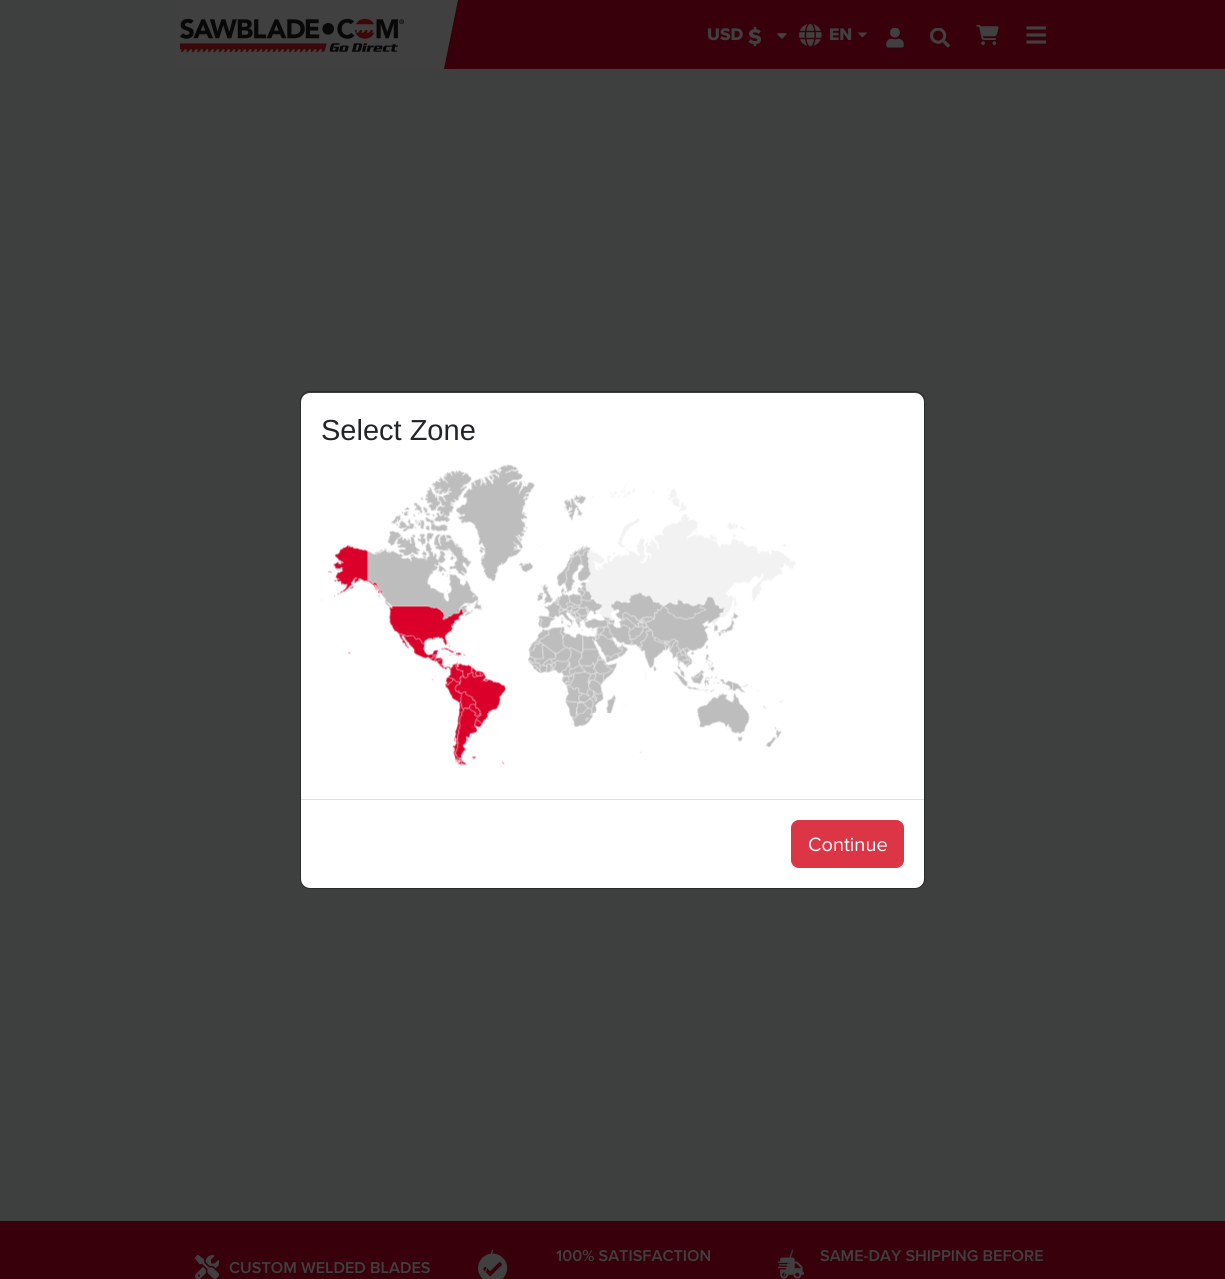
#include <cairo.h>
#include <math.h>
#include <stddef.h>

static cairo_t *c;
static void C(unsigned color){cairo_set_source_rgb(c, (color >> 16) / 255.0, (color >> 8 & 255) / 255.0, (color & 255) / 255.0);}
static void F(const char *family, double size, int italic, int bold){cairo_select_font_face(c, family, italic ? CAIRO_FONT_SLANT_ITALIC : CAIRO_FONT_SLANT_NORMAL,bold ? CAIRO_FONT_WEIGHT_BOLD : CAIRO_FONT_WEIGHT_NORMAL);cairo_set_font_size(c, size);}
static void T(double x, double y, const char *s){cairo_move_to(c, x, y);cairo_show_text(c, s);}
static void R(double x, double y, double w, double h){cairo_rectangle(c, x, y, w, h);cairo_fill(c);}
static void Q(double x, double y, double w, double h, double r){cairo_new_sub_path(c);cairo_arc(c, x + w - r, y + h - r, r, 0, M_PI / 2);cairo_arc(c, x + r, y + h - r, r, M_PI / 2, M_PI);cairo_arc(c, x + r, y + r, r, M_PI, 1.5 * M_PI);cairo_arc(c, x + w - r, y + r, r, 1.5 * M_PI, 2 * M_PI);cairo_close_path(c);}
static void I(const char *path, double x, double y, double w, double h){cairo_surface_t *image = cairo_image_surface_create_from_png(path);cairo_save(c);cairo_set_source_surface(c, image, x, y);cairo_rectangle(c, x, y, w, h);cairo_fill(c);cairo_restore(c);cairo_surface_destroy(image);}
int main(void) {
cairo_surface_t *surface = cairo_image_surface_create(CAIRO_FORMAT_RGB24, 1225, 1279);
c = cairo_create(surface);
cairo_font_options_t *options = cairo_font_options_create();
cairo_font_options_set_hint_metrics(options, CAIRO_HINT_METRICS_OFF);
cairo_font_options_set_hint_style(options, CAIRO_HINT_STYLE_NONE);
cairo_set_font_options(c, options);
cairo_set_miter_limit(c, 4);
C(0x3e3f3f);
cairo_paint(c);
C(0x37000b);
R(444,0,781,69);
C(0x404040);
cairo_new_path(c);
cairo_move_to(c,176,0);
cairo_line_to(c,176,69);
cairo_line_to(c,444,69);
cairo_line_to(c,458,0);
cairo_close_path(c);
cairo_fill(c);
I("1.png",179,18,225,35);
F("Proxima Nova ExtraBold",17.5,0,0);
T(707,40,"USD");
F("Proxima Nova ExtraBold",22,0,0);
T(748,44,"$");
I("2.png",777,33,10,6);
I("3.png",799,23,23,24);
F("Proxima Nova ExtraBold",17.5,0,0);
T(829,40,"EN");
cairo_new_path(c);
cairo_move_to(c,857.5,32.5);
cairo_line_to(c,867.5,32.5);
cairo_line_to(c,862.5,37.5);
cairo_close_path(c);
cairo_fill(c);
I("4.png",886,28,18,20);
I("5.png",930,28,20,20);
I("6.png",976,25,23,20);
I("7.png",1026,26,21,18);
Q(300.5,391.5,624,497,9.5);
cairo_set_source_rgba(c,0,0,0,0.18);
cairo_set_line_width(c,1);
cairo_stroke(c);
C(0xffffff);
Q(301,393,623,495,9);
cairo_fill(c);
Q(300.5,391.5,624,497,9.5);
cairo_set_source_rgba(c,0,0,0,0.18);
cairo_stroke(c);
F("Liberation Sans",29,0,0);
C(0x212529);
T(321,440,"Select Zone");
I("8.png",321,464,475,302);
C(0xdee2e6);
R(301,799,623,1);
C(0xdc3545);
Q(791.5,820.5,112,47,7.5);
cairo_fill_preserve(c);
cairo_stroke(c);
F("Proxima Nova",20,0,0);
C(0xffffff);
T(808,851,"Continue");
C(0x37000b);
R(0,1221,1225,58);
C(0x383838);
cairo_new_path(c);
cairo_move_to(c,492,1249.5);
cairo_line_to(c,493.5,1250);
cairo_line_to(c,481.5,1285.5);
cairo_line_to(c,480.5,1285.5);
cairo_close_path(c);
cairo_fill(c);
I("9.png",478,1253,30,26);
F("Proxima Nova SemiBold",16.25,0,0);
C(0x404040);
T(556,1261,"100% SATISFACTION");
C(0x383838);
cairo_new_path(c);
cairo_move_to(c,792,1249.5);
cairo_line_to(c,793.5,1250);
cairo_line_to(c,781.5,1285.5);
cairo_line_to(c,780.5,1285.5);
cairo_close_path(c);
cairo_fill(c);
I("10.png",778,1257,26,22);
C(0x404040);
T(820,1261,"SAME-DAY SHIPPING BEFORE");
I("11.png",195,1255,24,24);
T(229,1273,"CUSTOM WELDED BLADES");
cairo_surface_write_to_png(surface, "o.png");
cairo_font_options_destroy(options);
cairo_destroy(c);
cairo_surface_destroy(surface);
return 0;
}
